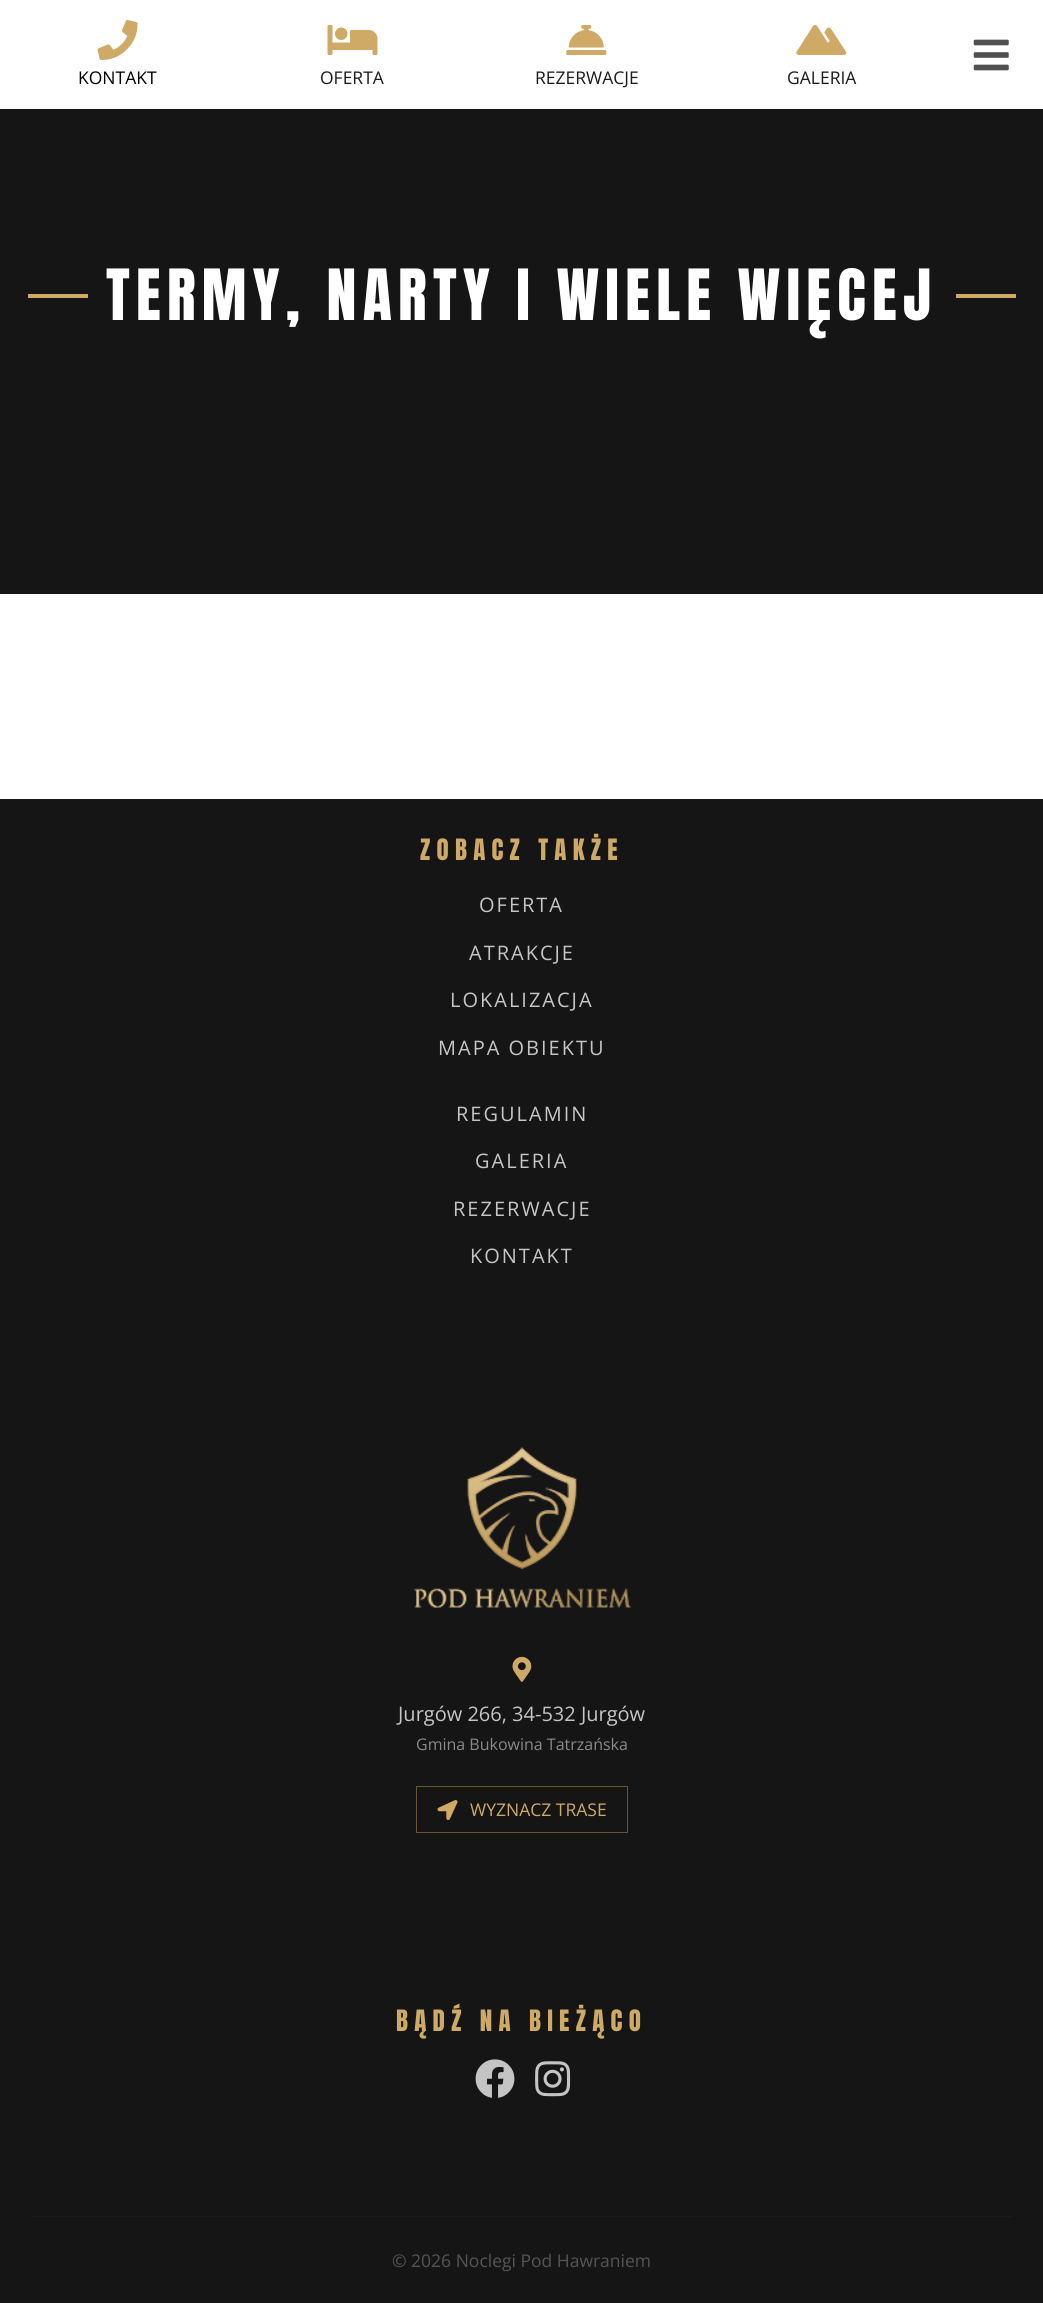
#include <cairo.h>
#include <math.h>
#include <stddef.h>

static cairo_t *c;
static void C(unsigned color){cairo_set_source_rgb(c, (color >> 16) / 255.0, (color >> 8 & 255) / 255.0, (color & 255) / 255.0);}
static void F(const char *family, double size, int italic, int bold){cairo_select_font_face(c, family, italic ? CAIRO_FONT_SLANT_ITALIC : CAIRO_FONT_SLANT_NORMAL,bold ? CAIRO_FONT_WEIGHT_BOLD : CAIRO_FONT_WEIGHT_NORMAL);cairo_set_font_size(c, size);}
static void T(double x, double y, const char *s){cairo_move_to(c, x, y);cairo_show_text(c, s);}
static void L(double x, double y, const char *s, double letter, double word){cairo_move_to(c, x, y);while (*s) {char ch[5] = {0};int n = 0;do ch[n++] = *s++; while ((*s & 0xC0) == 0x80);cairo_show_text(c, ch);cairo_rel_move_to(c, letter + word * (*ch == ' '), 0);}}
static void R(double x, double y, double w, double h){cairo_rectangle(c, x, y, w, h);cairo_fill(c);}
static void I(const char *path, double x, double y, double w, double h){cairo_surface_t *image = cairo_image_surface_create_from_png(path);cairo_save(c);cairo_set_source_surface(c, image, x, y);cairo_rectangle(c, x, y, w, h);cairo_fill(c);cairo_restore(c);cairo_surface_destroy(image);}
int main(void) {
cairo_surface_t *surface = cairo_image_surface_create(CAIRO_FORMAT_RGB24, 1043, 2303);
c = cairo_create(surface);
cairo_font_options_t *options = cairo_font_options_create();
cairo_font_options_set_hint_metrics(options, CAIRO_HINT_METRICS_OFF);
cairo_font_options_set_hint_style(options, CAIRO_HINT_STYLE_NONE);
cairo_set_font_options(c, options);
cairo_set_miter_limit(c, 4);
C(0x151515);
cairo_paint(c);
C(0xffffff);
R(0,0,1043,109);
I("1.png",973,39,36,32);
I("2.png",97,20,41,40);
F("Open Sans",17.5,0,0);
C(0x000000);
T(78,84,"KONTAKT");
I("3.png",327,25,51,30);
C(0x1a1a1a);
T(320,84,"OFERTA");
I("4.png",566,25,41,30);
T(535,84,"REZERWACJE");
I("5.png",796,25,51,30);
T(787,84,"GALERIA");
C(0xcfaa66);
R(28,294,60,4);
F("Anton",60,0,0);
C(0xffffff);
L(106,320,"TERMY, NARTY I WIELE WIĘCEJ",6.25,0);
C(0xcfaa66);
R(956,294,60,4);
C(0xffffff);
R(0,594,1043,205);
F("Anton",25,0,0);
C(0xcfaa66);
L(420,860,"ZOBACZ TAKŻE",6.25,0);
F("Open Sans",20,0,0);
C(0xc5c5c5);
L(479,912,"OFERTA",2,0);
L(469,960,"ATRAKCJE",2,0);
L(450,1007,"LOKALIZACJA",2,0);
L(438,1055,"MAPA OBIEKTU",2,0);
L(456,1121,"REGULAMIN",2,0);
L(475,1168,"GALERIA",2,0);
L(453,1216,"REZERWACJE",2,0);
L(470,1263,"KONTAKT",2,0);
I("6.png",413,1447,219,161);
I("7.png",512,1656,20,26);
T(398,1721,"Jurgów 266, 34-532 Jurgów");
F("Open Sans",16,0,0);
C(0x8a8a8a);
T(416,1750,"Gmina Bukowina Tatrzańska");
cairo_rectangle(c,416.5,1786.5,211,46);
C(0x6c552a);
cairo_set_line_width(c,1);
cairo_stroke(c);
I("8.png",437,1800,21,20);
F("Open Sans",17.5,0,0);
C(0xcfaa66);
T(470,1816,"WYZNACZ TRASE");
F("Anton",25,0,0);
L(396,2031,"BĄDŹ NA BIEŻĄCO",6.25,0);
I("9.png",475,2059,40,39);
I("10.png",535,2061,36,36);
C(0x1b1b1b);
R(31,2216,982,1);
F("Open Sans",17.5,0,0);
C(0x555555);
T(392,2267,"© 2026 Noclegi Pod Hawraniem");
cairo_surface_write_to_png(surface, "o.png");
cairo_font_options_destroy(options);
cairo_destroy(c);
cairo_surface_destroy(surface);
return 0;
}
